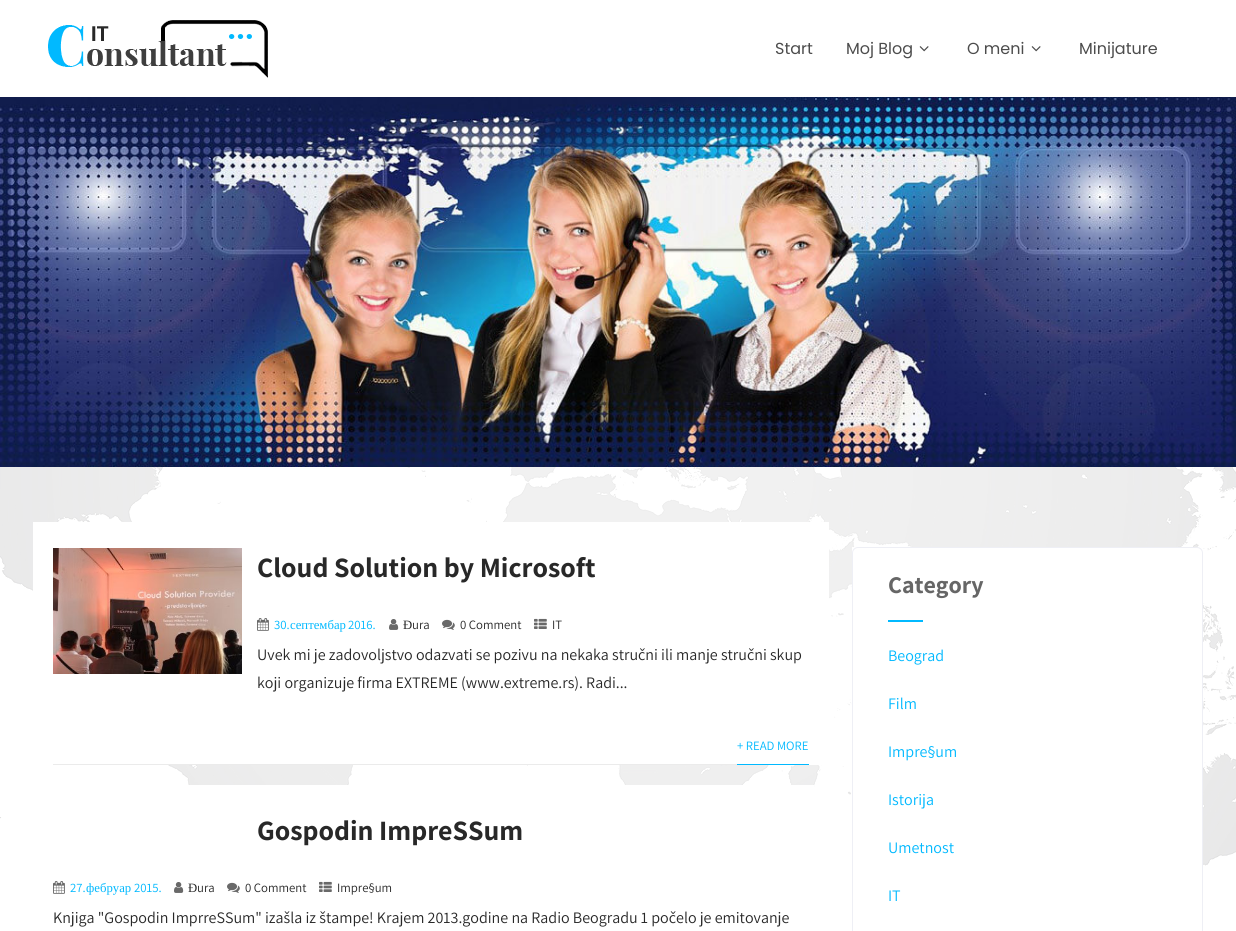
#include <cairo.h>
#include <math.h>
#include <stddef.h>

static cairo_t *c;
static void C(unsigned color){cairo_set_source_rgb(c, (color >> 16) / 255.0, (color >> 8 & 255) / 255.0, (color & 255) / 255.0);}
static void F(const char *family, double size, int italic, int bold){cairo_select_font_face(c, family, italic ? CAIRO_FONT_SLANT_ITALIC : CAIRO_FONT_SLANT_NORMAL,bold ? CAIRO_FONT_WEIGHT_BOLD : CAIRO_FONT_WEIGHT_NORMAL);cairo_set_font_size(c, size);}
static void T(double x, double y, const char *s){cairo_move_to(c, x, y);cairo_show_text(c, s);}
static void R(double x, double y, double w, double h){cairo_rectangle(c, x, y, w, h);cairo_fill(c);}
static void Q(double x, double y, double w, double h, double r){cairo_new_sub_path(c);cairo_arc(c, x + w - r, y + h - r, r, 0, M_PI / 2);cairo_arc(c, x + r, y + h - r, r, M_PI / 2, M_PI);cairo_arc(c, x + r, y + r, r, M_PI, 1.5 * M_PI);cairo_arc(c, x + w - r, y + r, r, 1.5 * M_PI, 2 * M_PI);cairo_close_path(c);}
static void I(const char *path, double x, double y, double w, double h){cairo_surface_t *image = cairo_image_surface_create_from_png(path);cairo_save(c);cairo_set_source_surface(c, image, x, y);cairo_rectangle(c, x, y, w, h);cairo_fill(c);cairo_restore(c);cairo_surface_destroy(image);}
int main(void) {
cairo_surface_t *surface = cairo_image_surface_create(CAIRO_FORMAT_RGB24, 1236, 931);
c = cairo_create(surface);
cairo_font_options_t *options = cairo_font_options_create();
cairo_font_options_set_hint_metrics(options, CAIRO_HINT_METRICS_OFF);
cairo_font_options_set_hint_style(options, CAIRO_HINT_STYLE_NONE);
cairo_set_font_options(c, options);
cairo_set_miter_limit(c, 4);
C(0xffffff);
cairo_paint(c);
I("1.png",0,467,1236,464);
I("2.png",48,20,220,58);
F("Poppins",16,0,0);
C(0x4c4c4c);
T(775,54,"Start");
T(846,54,"Moj Blog");
I("3.png",919,46,10,6);
T(967,54,"O meni");
I("3.png",1031,46,10,6);
T(1079,54,"Minijature");
I("4.png",0,97,1236,370);
C(0xffffff);
R(33,522,796,243);
I("5.png",53,548,189,126);
F("Assistant",28,0,1);
C(0x282828);
T(257,577,"Cloud Solution by Microsoft");
I("6.png",257,618,12,13);
F("Assistant",12.75,0,0);
C(0x01b9ff);
T(274,629,"30.");
F("Liberation Serif",12.75,0,0);
T(290,629,"септембар");
F("Assistant",12.75,0,0);
T(348,629,"2016.");
I("7.png",389,619,10,11);
F("Liberation Serif",12.75,0,0);
C(0x282828);
T(403,629,"Đ");
F("Assistant",12.75,0,0);
T(412,629,"ura");
I("8.png",442,619,13,11);
T(460,629,"0 Comment");
I("9.png",534,618,13,11);
T(552,629,"IT");
F("Assistant",16,0,0);
T(257,660,"Uvek mi je zadovoljstvo odazvati se pozivu na nekaka stručni ili manje stručni skup");
T(257,688,"koji organizuje firma EXTREME (www.extreme.rs). Radi...");
C(0xebebeb);
R(53,764,684,1);
F("Assistant",12.75,0,0);
C(0x01b9ff);
T(737,750,"+ READ MORE");
R(737,764,72,1);
C(0xffffff);
R(132,785,682,146);
F("Assistant",28,0,1);
C(0x282828);
T(257,840,"Gospodin ImpreSSum");
I("6.png",53,881,12,13);
F("Assistant",12.75,0,0);
C(0x01b9ff);
T(70,892,"27.");
F("Liberation Serif",12.75,0,0);
T(86,892,"фебруар");
F("Assistant",12.75,0,0);
T(134,892,"2015.");
I("7.png",174,882,10,11);
F("Liberation Serif",12.75,0,0);
C(0x282828);
T(188,892,"Đ");
F("Assistant",12.75,0,0);
T(197,892,"ura");
I("8.png",227,882,13,11);
T(245,892,"0 Comment");
I("9.png",319,881,13,11);
T(337,892,"Impre§um");
F("Assistant",16,0,0);
T(53,923,"Knjiga \"Gospodin ImprreSSum\" izašla iz štampe! Krajem 2013.godine na Radio Beogradu 1 počelo je emitovanje");
C(0xffffff);
R(852,547,351,349);
Q(852.5,547.5,350,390,5.5);
C(0xeeeff5);
cairo_set_line_width(c,1);
cairo_stroke(c);
F("Assistant",24,0,1);
C(0x666666);
T(888,593,"Category");
C(0x01b9ff);
R(888,620,35,2);
F("Assistant",16,0,0);
T(888,661,"Beograd");
T(888,709,"Film");
T(888,757,"Impre§um");
T(888,805,"Istorija");
T(888,853,"Umetnost");
T(888,901,"IT");
cairo_surface_write_to_png(surface, "o.png");
cairo_font_options_destroy(options);
cairo_destroy(c);
cairo_surface_destroy(surface);
return 0;
}
